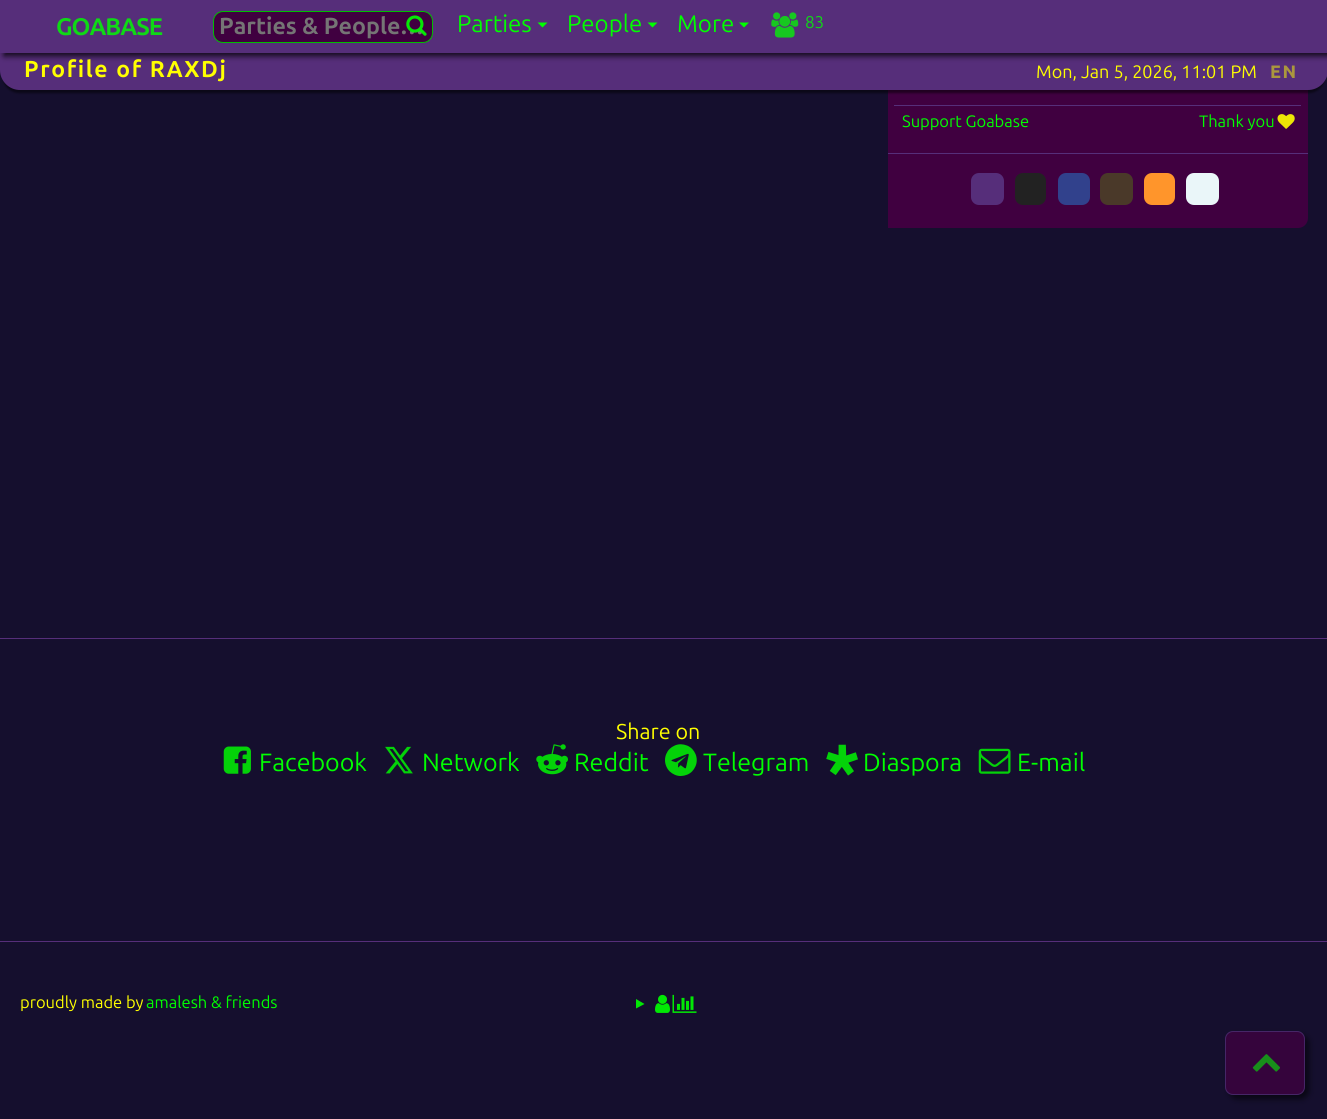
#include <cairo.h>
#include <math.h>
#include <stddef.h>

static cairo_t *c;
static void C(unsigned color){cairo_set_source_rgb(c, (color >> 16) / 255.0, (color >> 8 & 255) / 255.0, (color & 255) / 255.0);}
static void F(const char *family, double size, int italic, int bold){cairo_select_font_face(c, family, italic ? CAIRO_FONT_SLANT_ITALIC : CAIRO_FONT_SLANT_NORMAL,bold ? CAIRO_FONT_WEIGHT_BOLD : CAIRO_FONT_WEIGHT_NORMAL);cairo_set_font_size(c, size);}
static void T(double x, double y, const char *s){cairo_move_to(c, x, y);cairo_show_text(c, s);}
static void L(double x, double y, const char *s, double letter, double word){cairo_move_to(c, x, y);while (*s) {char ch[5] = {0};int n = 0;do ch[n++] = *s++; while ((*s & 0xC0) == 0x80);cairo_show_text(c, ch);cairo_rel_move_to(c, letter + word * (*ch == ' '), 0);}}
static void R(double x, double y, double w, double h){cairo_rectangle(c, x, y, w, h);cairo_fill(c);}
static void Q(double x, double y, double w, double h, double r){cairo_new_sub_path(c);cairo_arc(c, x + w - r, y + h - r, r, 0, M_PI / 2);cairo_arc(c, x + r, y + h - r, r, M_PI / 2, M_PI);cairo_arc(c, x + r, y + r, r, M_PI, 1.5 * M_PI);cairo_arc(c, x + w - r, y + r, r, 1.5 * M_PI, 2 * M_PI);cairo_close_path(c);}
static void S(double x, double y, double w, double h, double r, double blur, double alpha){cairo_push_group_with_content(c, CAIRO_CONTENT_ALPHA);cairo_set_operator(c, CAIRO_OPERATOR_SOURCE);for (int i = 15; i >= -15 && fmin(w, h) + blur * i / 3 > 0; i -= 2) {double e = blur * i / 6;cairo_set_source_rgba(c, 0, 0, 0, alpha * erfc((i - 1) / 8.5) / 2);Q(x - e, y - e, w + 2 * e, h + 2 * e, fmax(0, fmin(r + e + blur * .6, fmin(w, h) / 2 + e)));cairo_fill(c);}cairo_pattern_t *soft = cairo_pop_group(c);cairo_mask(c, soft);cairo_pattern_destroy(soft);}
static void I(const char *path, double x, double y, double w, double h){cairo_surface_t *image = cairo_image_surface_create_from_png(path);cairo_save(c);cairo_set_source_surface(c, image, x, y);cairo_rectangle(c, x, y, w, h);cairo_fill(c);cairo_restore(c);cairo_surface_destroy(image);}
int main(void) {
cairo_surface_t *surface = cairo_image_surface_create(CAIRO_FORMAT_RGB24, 1327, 1119);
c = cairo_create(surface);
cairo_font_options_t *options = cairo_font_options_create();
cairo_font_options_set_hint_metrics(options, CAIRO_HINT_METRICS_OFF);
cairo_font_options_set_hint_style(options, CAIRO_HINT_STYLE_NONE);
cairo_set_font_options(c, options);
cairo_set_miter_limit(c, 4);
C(0x150f2e);
cairo_paint(c);
C(0x400040);
cairo_new_path(c);
cairo_move_to(c,888,-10);
cairo_line_to(c,1308,-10);
cairo_line_to(c,1308,218);
cairo_curve_to(c,1308,223.5,1303.5,228,1298,228);
cairo_line_to(c,888,228);
cairo_close_path(c);
cairo_fill(c);
C(0x000000);
S(3,60,1322,33,18,1,.5);
C(0x562e7a);
cairo_new_path(c);
cairo_move_to(c,0,53);
cairo_line_to(c,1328,53);
cairo_line_to(c,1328,70);
cairo_curve_to(c,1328,81,1319,90,1308,90);
cairo_line_to(c,20,90);
cairo_curve_to(c,9,90,0,81,0,70);
cairo_close_path(c);
cairo_fill(c);
C(0x000000);
S(4,4,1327,52,0,3,.8);
C(0x562e7a);
R(0,0,1327,53);
F("Ubuntu",24,0,1);
C(0x0fd916);
L(56,35,"GOABASE",-1,0);
C(0x400040);
Q(213.5,11.5,219,31,9.5);
cairo_fill_preserve(c);
C(0x00bf00);
cairo_set_line_width(c,1);
cairo_stroke(c);
F("Ubuntu",23.25,0,1);
C(0x757575);
T(219,34,"Parties & People…");
I("1.png",406,15,21,21);
F("Ubuntu",24,0,0);
C(0x00ff00);
T(457,32,"Parties");
cairo_new_path(c);
cairo_move_to(c,537.5,22.5);
cairo_line_to(c,547.5,22.5);
cairo_line_to(c,542.5,27.5);
cairo_close_path(c);
cairo_fill(c);
T(567,32,"People");
cairo_new_path(c);
cairo_move_to(c,647.5,22.5);
cairo_line_to(c,657.5,22.5);
cairo_line_to(c,652.5,27.5);
cairo_close_path(c);
cairo_fill(c);
T(677,32,"More");
cairo_new_path(c);
cairo_move_to(c,739,22.5);
cairo_line_to(c,749,22.5);
cairo_line_to(c,744,27.5);
cairo_close_path(c);
cairo_fill(c);
I("2.png",771,12,28,26);
F("Ubuntu",17,0,0);
C(0x0fd916);
T(805,28,"83");
F("Ubuntu",23,0,1);
C(0xffff00);
L(24,77,"Profile of RAXDj",1.6,0);
F("Ubuntu",18,0,0);
T(1036,78,"Mon, Jan 5, 2026, 11:01 PM");
F("Ubuntu ExtraBold",18,0,0);
C(0xab973d);
L(1270,78,"EN",1.6,0);
C(0x562e7a);
R(894,105,407,1);
F("Ubuntu",16.5,0,0);
C(0x00ff00);
T(902,127,"Support Goabase");
T(1199,127,"Thank you");
I("3.png",1277,114,18,15);
C(0x562e7a);
R(888,153,420,1);
Q(971,173,33,32,8);
cairo_fill(c);
C(0x222222);
Q(1015,173,31,32,8);
cairo_fill(c);
C(0x31418c);
Q(1058,173,32,32,8);
cairo_fill(c);
C(0x4a3929);
Q(1100,173,33,32,8);
cairo_fill(c);
C(0xff952b);
Q(1144,173,31,32,8);
cairo_fill(c);
C(0xeaf6f9);
Q(1186,173,33,32,8);
cairo_fill(c);
C(0x562e7a);
R(0,638,1327,1);
F("Ubuntu",21.5,0,0);
C(0xffff00);
T(616,739,"Share on");
I("4.png",223,746,28,28);
F("Ubuntu",25,0,0);
C(0x00ff00);
T(259,771,"Facebook");
I("5.png",385,746,28,28);
T(422,771,"Network");
I("6.png",536,744,32,31);
T(574,771,"Reddit");
I("7.png",665,744,32,32);
T(703,771,"Telegram");
I("8.png",826,744,32,32);
T(863,771,"Diaspora");
I("9.png",978,748,33,26);
T(1017,771,"E-mail");
C(0x562e7a);
R(0,941,1327,1);
F("Ubuntu",16.5,0,0);
C(0xffff00);
T(20,1008,"proudly made by");
C(0x00ff00);
T(146,1008,"amalesh & friends");
C(0x02e705);
cairo_new_path(c);
cairo_move_to(c,636,999);
cairo_line_to(c,644.5,1004);
cairo_line_to(c,636,1008.5);
cairo_close_path(c);
cairo_fill(c);
I("10.png",655,994,15,19);
I("11.png",672,994,25,19);
C(0x05040c);
S(1229,1035,80,64,8,3,.8);
C(0x35043c);
Q(1225.5,1031.5,79,63,7.5);
cairo_fill_preserve(c);
C(0x462667);
cairo_stroke(c);
I("12.png",1252,1054,28,18);
cairo_surface_write_to_png(surface, "o.png");
cairo_font_options_destroy(options);
cairo_destroy(c);
cairo_surface_destroy(surface);
return 0;
}
